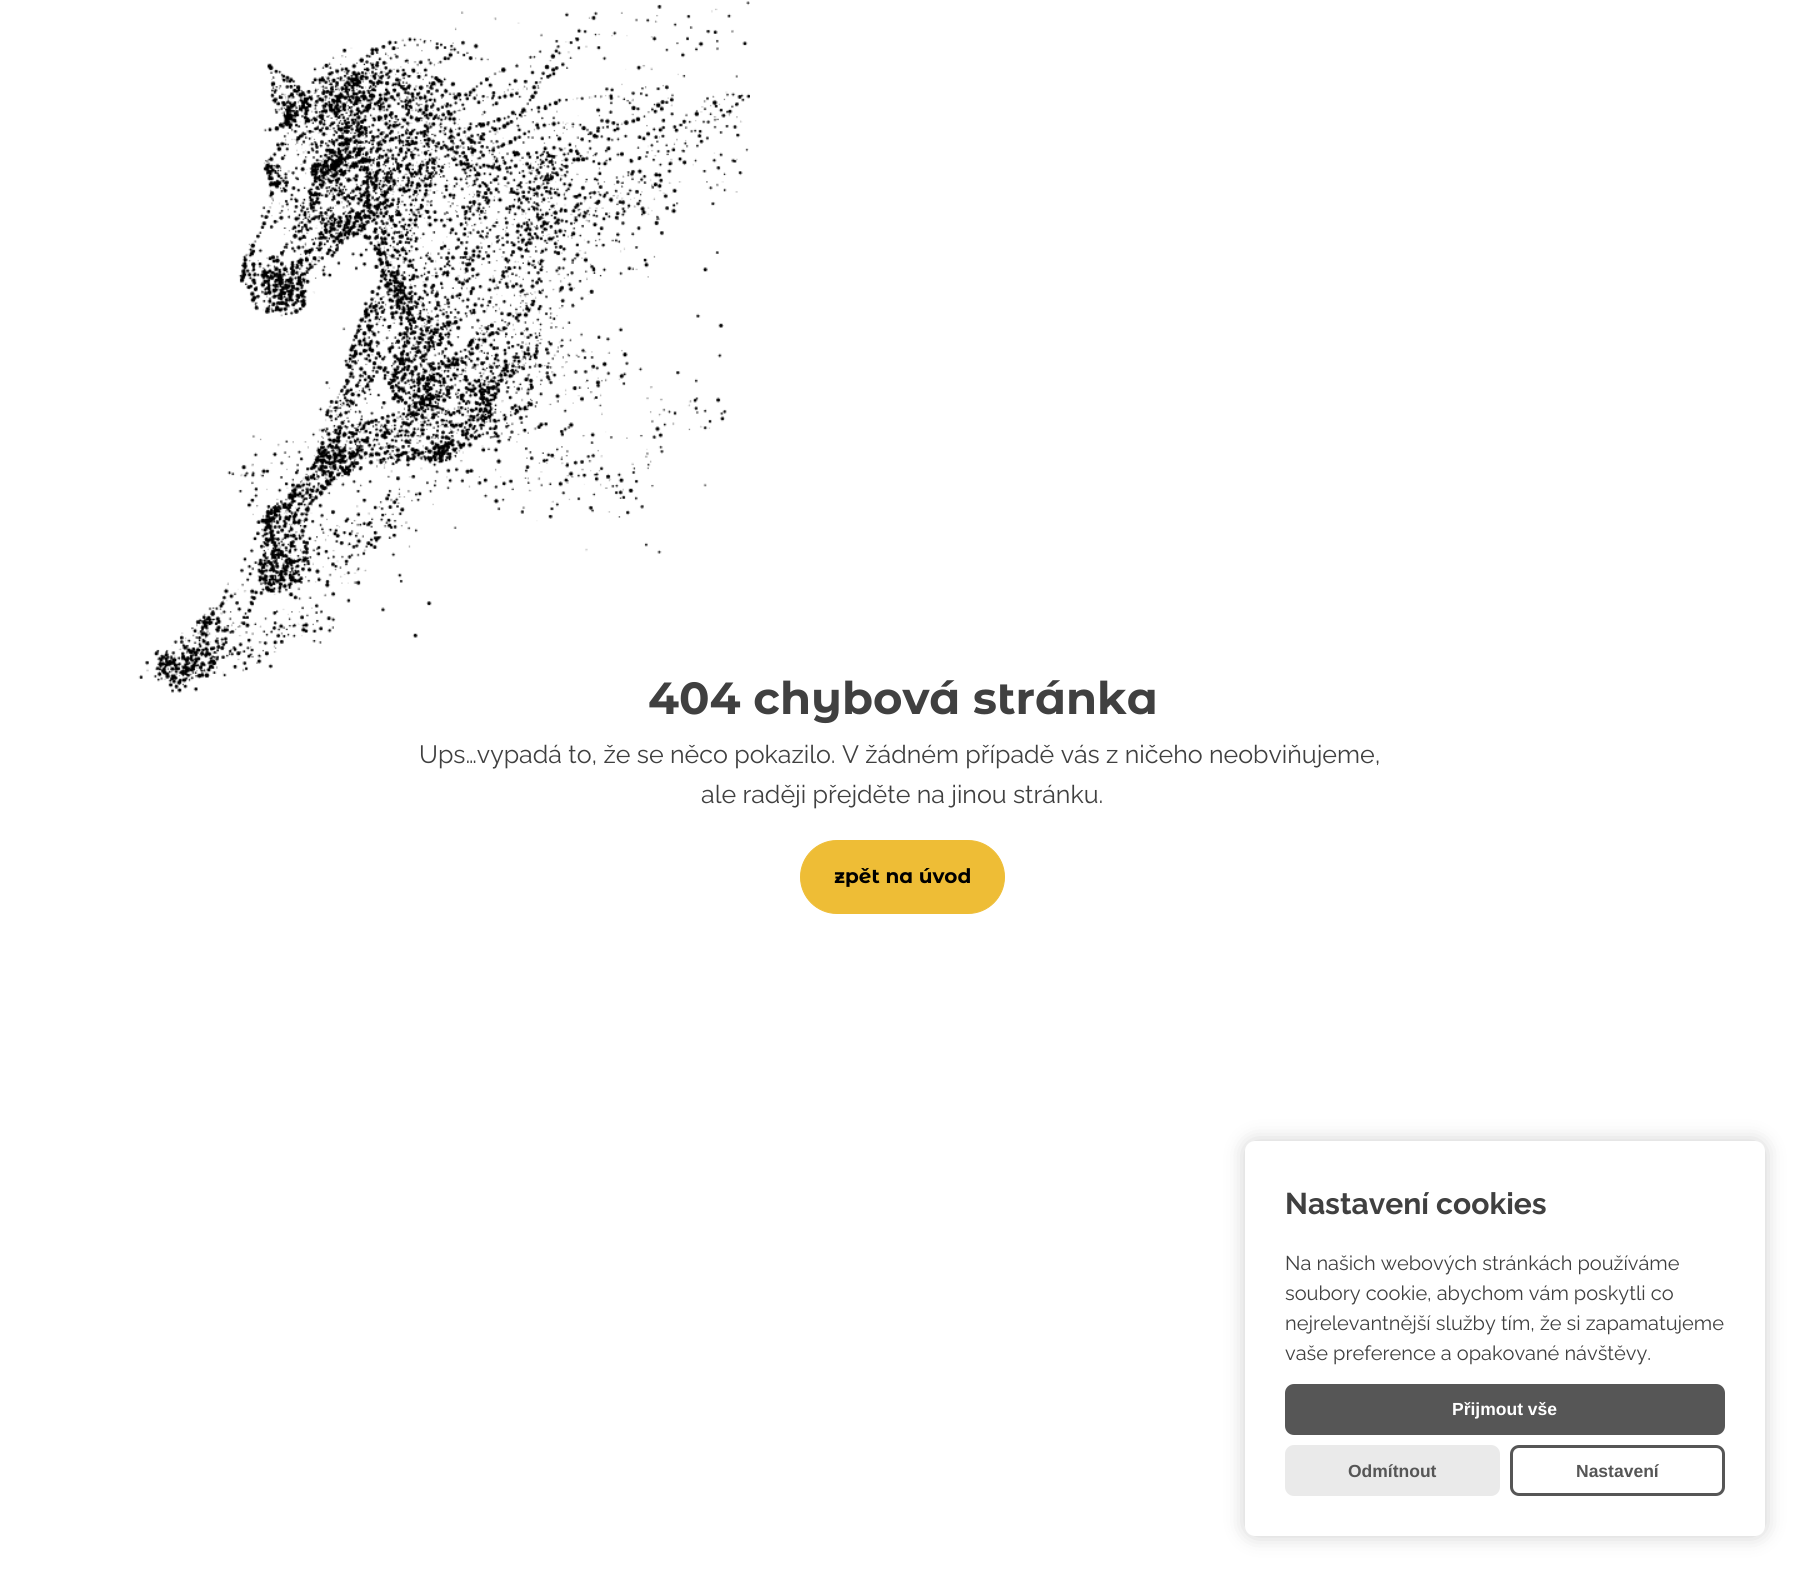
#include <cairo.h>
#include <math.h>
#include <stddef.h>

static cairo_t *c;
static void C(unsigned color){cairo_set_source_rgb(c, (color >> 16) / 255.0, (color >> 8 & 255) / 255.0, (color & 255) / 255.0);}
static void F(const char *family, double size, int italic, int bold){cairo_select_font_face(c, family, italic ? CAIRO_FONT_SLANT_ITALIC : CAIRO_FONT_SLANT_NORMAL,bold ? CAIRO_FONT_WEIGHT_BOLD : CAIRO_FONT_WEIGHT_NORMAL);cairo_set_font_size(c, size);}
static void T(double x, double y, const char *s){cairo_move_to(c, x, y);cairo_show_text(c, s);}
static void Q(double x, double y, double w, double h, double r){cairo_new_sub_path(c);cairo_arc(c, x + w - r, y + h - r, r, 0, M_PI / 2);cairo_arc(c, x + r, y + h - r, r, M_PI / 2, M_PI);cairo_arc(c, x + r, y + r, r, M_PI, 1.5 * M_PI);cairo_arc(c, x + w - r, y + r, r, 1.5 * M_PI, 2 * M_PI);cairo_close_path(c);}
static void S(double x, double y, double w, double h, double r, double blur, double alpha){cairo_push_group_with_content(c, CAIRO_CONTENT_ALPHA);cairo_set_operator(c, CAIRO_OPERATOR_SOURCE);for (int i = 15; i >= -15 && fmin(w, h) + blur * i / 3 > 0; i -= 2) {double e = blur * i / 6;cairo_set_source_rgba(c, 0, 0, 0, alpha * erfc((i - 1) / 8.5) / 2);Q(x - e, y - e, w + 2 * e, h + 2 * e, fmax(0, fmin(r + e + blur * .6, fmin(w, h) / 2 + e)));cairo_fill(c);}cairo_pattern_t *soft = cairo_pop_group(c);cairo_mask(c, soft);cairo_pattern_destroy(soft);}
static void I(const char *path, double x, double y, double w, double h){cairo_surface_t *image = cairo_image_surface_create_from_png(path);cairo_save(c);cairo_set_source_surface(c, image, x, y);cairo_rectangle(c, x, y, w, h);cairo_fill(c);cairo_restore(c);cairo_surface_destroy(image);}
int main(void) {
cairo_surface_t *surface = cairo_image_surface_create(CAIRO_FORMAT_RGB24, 1804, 1576);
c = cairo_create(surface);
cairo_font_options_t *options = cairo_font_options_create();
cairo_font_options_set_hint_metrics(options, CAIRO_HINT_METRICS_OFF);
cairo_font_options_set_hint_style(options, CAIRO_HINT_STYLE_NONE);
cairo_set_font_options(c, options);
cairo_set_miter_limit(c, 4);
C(0xffffff);
cairo_paint(c);
I("1.png",138,1,612,692);
F("Montserrat Alternates",45,0,1);
C(0x404040);
T(648,714,"404 chybová stránka");
F("Raleway",25,0,0);
T(419,763,"Ups…vypadá to, že se něco pokazilo. V žádném případě vás z ničeho neobviňujeme,");
T(701,803,"ale raději přejděte na jinou stránku.");
C(0xeebd36);
Q(800.5,840.5,204,73,36.5);
cairo_fill_preserve(c);
cairo_set_line_width(c,1);
cairo_stroke(c);
F("Montserrat Alternates",20,0,1);
C(0x000000);
T(834,883,"zpět na úvod");
C(0x000000);
S(1245,1141,520,395,10,10,.2);
C(0xffffff);
Q(1245,1141,520,395,10);
cairo_fill(c);
F("Raleway",30,0,1);
C(0x404040);
T(1285,1214,"Nastavení cookies");
F("Raleway",20,0,0);
T(1285,1270,"Na našich webových stránkách používáme");
T(1285,1300,"soubory cookie, abychom vám poskytli co");
T(1285,1330,"nejrelevantnější služby tím, že si zapamatujeme");
T(1285,1360,"vaše preference a opakované návštěvy.");
C(0x565656);
Q(1286.5,1385.5,437,48,7.5);
cairo_fill_preserve(c);
cairo_set_line_width(c,3);
cairo_stroke(c);
F("Liberation Sans",17.5,0,1);
C(0xffffff);
T(1452,1415,"Přijmout vše");
C(0xeaeaea);
Q(1286.5,1446.5,212,48,7.5);
cairo_fill_preserve(c);
cairo_stroke(c);
C(0x565656);
T(1348,1477,"Odmítnout");
Q(1511.5,1446.5,212,48,7.5);
cairo_stroke(c);
T(1576,1477,"Nastavení");
cairo_surface_write_to_png(surface, "o.png");
cairo_font_options_destroy(options);
cairo_destroy(c);
cairo_surface_destroy(surface);
return 0;
}
